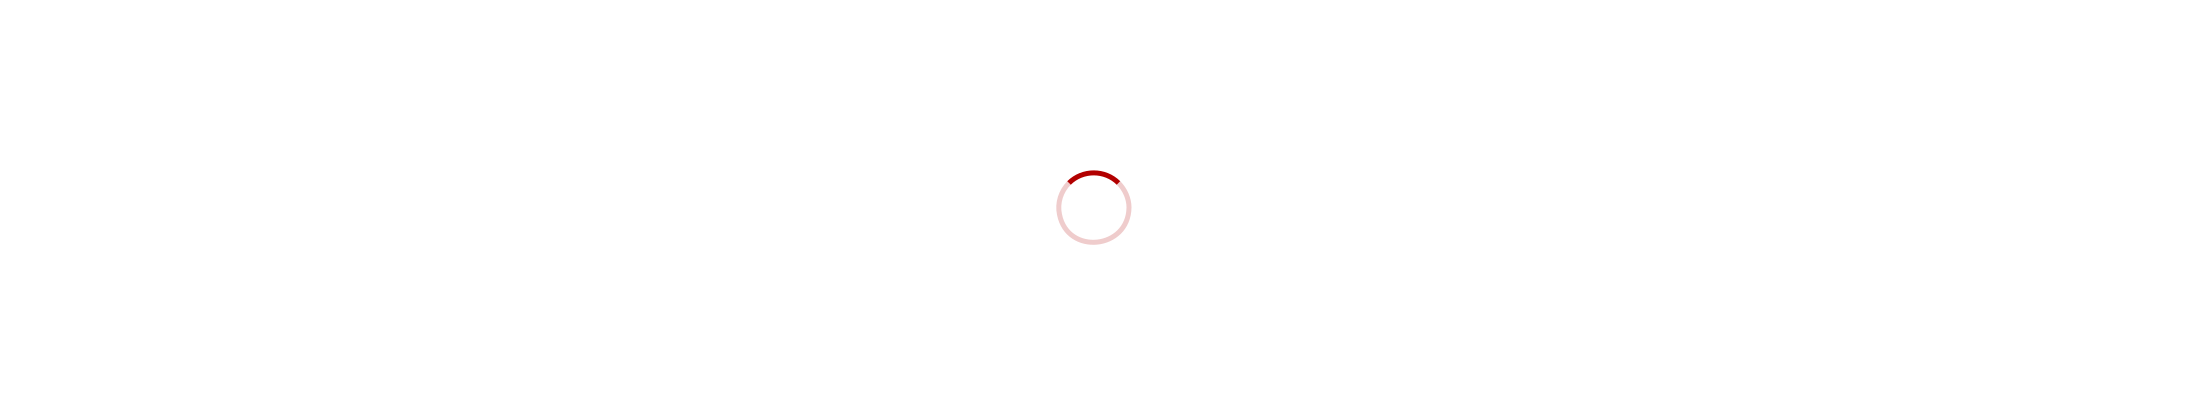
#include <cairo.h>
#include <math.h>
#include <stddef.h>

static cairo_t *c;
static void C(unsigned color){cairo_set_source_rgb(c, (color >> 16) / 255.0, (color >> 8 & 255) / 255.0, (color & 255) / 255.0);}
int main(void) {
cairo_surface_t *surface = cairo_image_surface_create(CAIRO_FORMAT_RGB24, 2187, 413);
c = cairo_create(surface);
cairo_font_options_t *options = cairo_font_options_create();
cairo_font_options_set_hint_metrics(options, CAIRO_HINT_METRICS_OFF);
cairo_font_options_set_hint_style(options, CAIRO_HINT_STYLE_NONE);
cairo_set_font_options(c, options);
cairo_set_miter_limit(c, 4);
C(0xffffff);
cairo_paint(c);
cairo_new_path(c);
cairo_move_to(c,1069,183);
cairo_curve_to(c,1082.5,169.5,1105,169.5,1118.5,183);
C(0xb20000);
cairo_set_line_width(c,5);
cairo_stroke(c);
cairo_new_path(c);
cairo_move_to(c,1118.5,183);
cairo_curve_to(c,1125,189.5,1129,198.5,1129,207.5);
cairo_curve_to(c,1128.5,249.5,1067.5,255.5,1059.5,214.5);
cairo_curve_to(c,1057,203,1061,191,1069,183);
cairo_set_source_rgba(c,0.698,0,0,0.2);
cairo_stroke(c);
cairo_surface_write_to_png(surface, "o.png");
cairo_font_options_destroy(options);
cairo_destroy(c);
cairo_surface_destroy(surface);
return 0;
}
